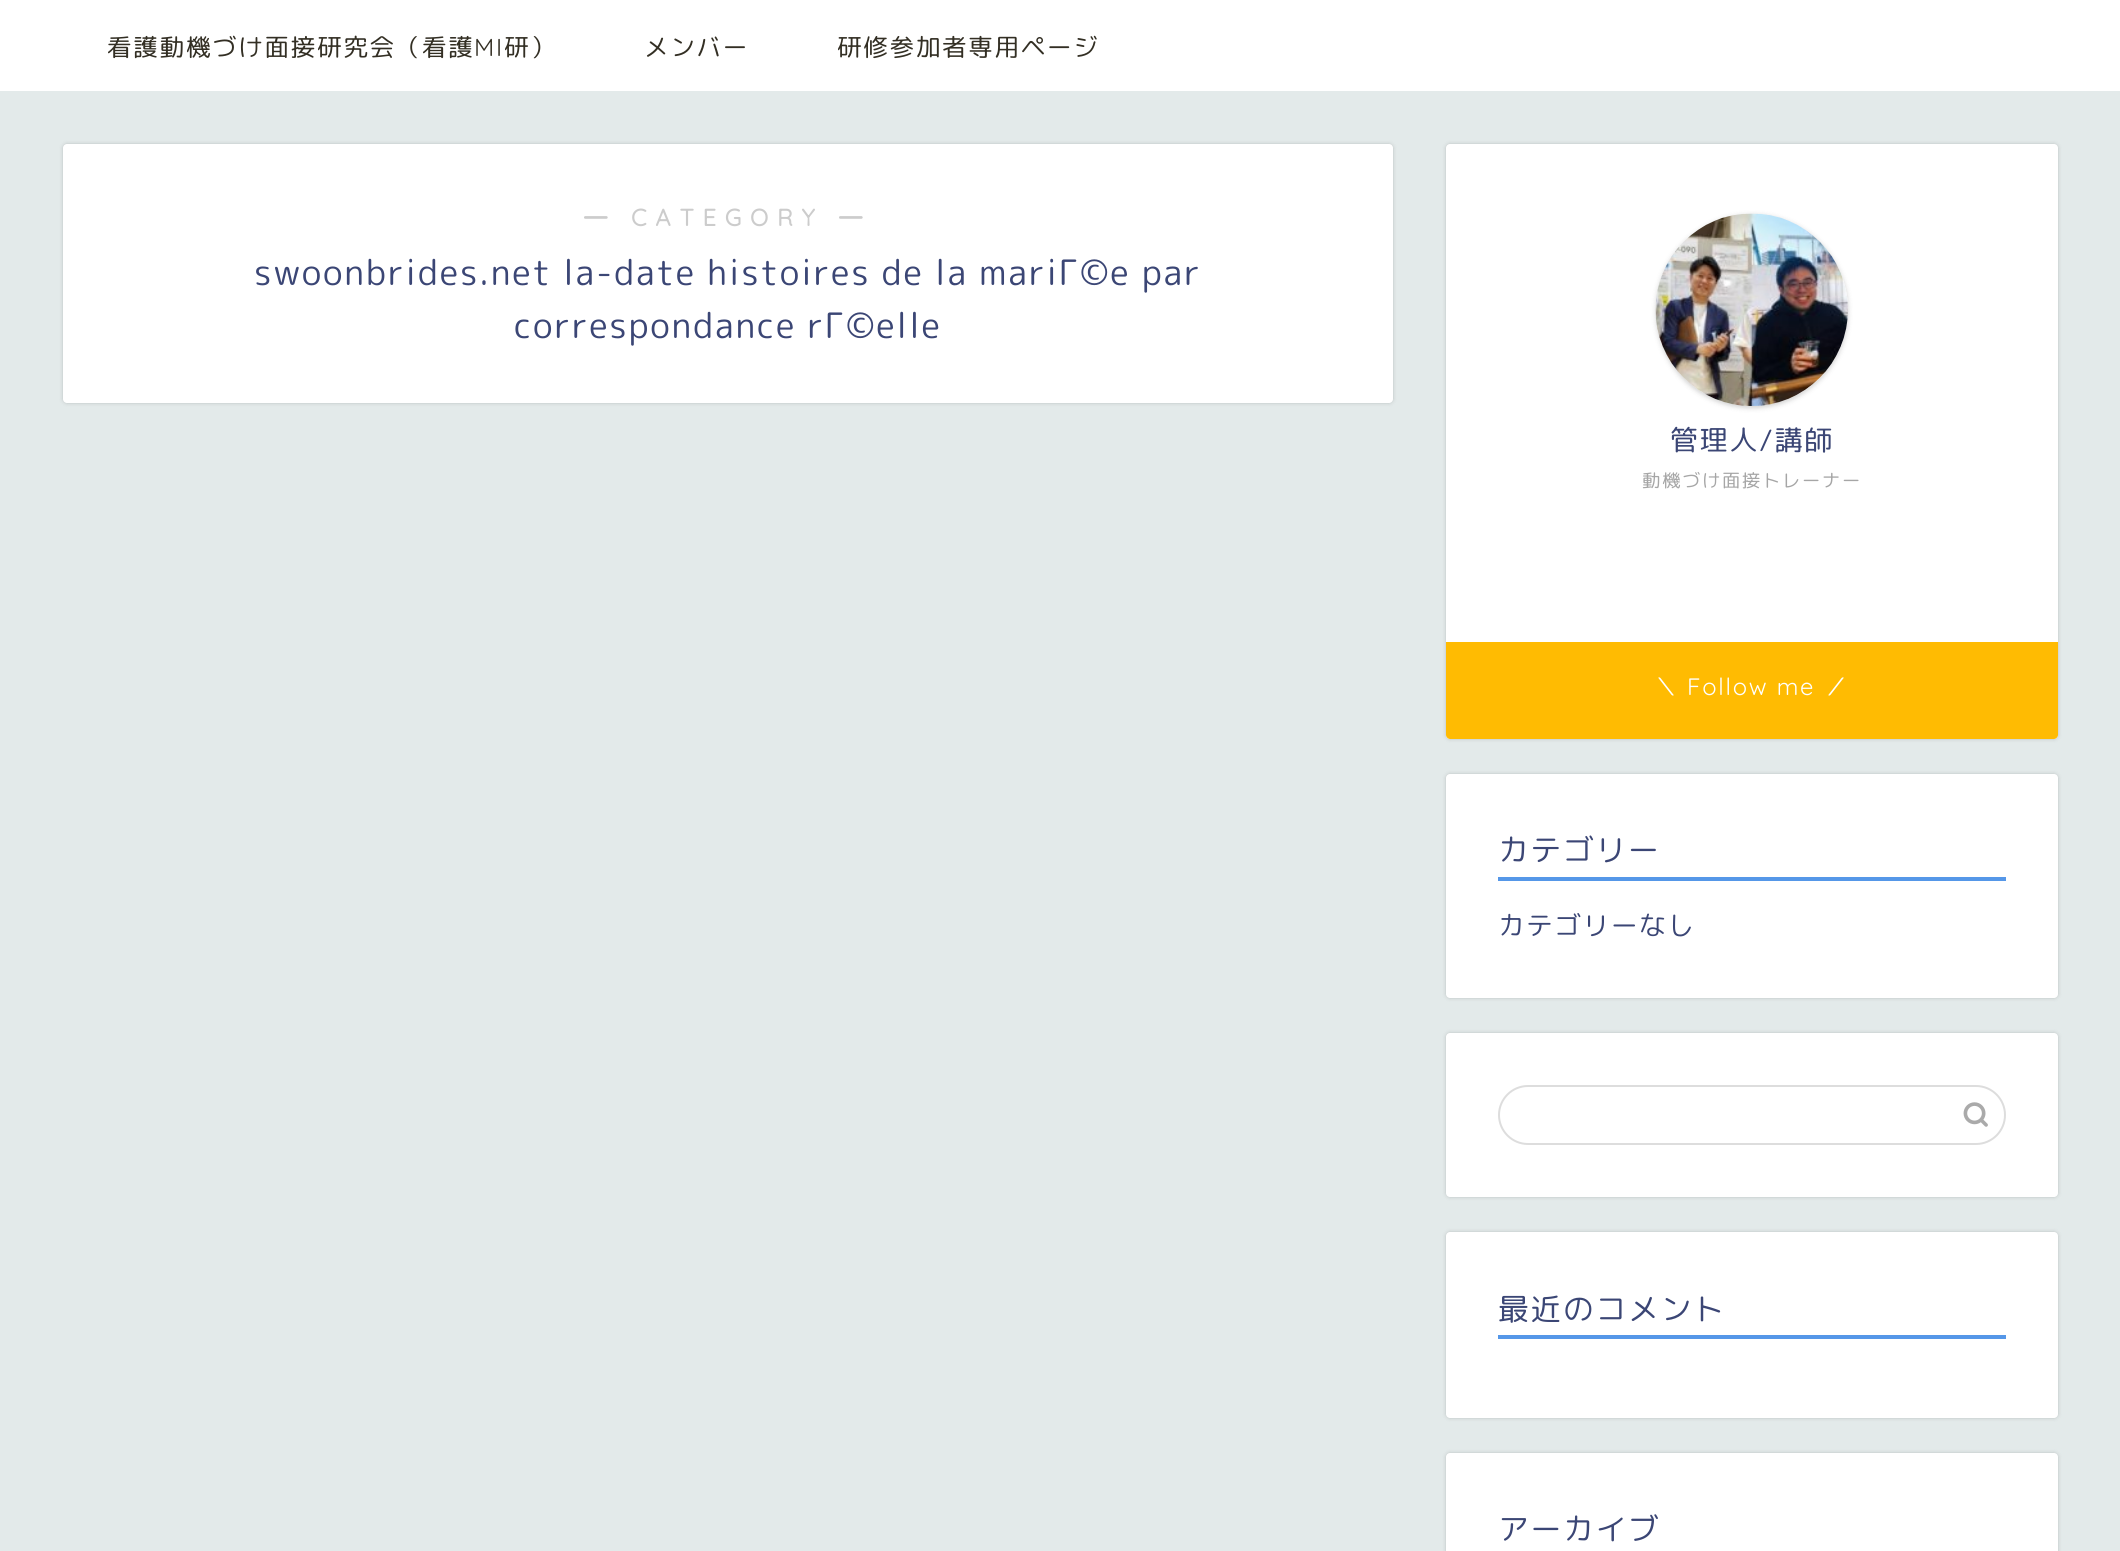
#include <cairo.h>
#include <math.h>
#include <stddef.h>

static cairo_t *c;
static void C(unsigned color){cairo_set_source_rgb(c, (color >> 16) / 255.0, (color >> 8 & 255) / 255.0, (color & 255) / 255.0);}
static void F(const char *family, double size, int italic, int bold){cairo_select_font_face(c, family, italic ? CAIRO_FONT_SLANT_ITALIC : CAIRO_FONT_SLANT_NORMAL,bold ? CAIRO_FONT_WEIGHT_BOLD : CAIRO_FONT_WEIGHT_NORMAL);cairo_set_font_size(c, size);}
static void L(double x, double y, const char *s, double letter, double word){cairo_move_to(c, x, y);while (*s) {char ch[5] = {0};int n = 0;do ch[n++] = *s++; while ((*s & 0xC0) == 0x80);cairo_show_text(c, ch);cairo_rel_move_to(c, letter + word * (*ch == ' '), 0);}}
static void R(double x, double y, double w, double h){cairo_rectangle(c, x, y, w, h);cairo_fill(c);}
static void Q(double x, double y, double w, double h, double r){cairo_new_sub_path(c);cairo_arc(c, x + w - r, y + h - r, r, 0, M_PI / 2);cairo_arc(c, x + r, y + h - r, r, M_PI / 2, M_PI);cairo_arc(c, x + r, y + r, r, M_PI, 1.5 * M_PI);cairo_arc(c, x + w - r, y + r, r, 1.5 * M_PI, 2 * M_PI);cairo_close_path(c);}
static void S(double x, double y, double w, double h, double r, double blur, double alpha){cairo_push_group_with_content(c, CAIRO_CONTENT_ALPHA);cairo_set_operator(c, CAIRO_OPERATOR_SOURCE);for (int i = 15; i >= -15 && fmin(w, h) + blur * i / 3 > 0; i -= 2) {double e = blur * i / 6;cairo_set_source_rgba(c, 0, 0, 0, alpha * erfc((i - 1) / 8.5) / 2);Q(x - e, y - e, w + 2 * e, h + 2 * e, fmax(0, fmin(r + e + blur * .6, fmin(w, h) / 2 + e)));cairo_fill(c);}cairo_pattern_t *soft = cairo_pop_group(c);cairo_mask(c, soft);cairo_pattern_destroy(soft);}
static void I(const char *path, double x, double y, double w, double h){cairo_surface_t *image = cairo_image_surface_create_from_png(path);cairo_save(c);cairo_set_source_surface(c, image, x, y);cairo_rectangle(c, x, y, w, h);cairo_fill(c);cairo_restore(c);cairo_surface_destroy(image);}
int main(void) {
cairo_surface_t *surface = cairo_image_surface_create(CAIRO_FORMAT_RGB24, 2120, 1551);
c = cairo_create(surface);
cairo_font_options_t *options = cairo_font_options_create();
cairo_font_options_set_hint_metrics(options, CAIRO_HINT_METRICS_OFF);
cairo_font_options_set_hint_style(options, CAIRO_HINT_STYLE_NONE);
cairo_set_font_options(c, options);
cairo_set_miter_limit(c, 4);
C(0xe3eaea);
cairo_paint(c);
C(0xffffff);
R(0,0,2120,91);
F("Rounded Mplus 1c",24.5,0,0);
C(0x332f24);
L(107,56,"看護動機づけ面接研究会（看護",1.75,0);
F("Quicksand Light",24.5,0,0);
L(474,56,"MI",1.75,0);
F("Rounded Mplus 1c",24.5,0,0);
L(504,56,"研）",1.75,0);
L(644,56,"メンバー",1.75,0);
L(837,56,"研修参加者専用ページ",1.75,0);
C(0x000000);
S(63,144,1330,259,4,2,.18);
C(0xffffff);
Q(63,144,1330,259,4);
cairo_fill(c);
F("Rounded Mplus 1c Bold",23.75,0,1);
C(0xcccccc);
L(584,226,"―",8.75,0);
F("Quicksand",23.75,0,1);
L(631,226,"CATEGORY",8.75,0);
F("Rounded Mplus 1c Bold",23.75,0,1);
L(839,226,"―",8.75,0);
F("Rounded Mplus 1c",35,0,0);
C(0x3b4675);
L(254,285,"swoonbrides.net la-date histoires de la mariГ©e par",1.75,0);
L(514,338,"correspondance rГ©elle",1.75,0);
C(0x000000);
S(1446,144,612,595,4,2,.18);
C(0xffffff);
Q(1446,144,612,595,4);
cairo_fill(c);
C(0x000000);
S(1656,215,192,193,96,2.5,.18);
C(0xffffff);
cairo_arc(c,1752,310,96,0,2 * M_PI);
cairo_fill(c);
I("1.png",1655,213,193,193);
F("Rounded Mplus 1c",28,0,0);
C(0x3b4675);
L(1670,450,"管理人/講師",1.75,0);
F("Rounded Mplus 1c",18.25,0,0);
C(0xa6a6a6);
L(1642,487,"動機づけ面接トレーナー",1.75,0);
C(0xffbb02);
cairo_new_path(c);
cairo_move_to(c,1446,642);
cairo_line_to(c,2058,642);
cairo_line_to(c,2058,735);
cairo_curve_to(c,2058,737,2056,739,2054,739);
cairo_line_to(c,1450,739);
cairo_curve_to(c,1448,739,1446,737,1446,735);
cairo_close_path(c);
cairo_fill(c);
F("Rounded Mplus 1c",23.75,0,0);
C(0xffffff);
L(1654,695,"＼",1.75,0);
F("Quicksand Light",23.75,0,0);
L(1687,695,"Follow me",1.75,0);
F("Rounded Mplus 1c",23.75,0,0);
L(1824,695,"／",1.75,0);
C(0x000000);
S(1446,774,612,224,4,2,.18);
C(0xffffff);
Q(1446,774,612,224,4);
cairo_fill(c);
C(0x5597e8);
R(1498,877,508,4);
F("Rounded Mplus 1c",30.75,0,0);
C(0x3b4675);
L(1498,861,"カテゴリー",1.75,0);
F("Rounded Mplus 1c",26.5,0,0);
L(1498,935,"カテゴリーなし",1.75,0);
C(0x000000);
S(1446,1033,612,164,4,2,.18);
C(0xffffff);
Q(1446,1033,612,164,4);
cairo_fill(c);
Q(1499,1086,506,58,29);
C(0xdddddd);
cairo_stroke(c);
I("2.png",1963,1102,25,25);
C(0x000000);
S(1446,1232,612,186,4,2,.18);
C(0xffffff);
Q(1446,1232,612,186,4);
cairo_fill(c);
C(0x5597e8);
R(1498,1335,508,4);
F("Rounded Mplus 1c",30.75,0,0);
C(0x3b4675);
L(1498,1320,"最近のコメント",1.75,0);
C(0x000000);
S(1446,1453,612,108,4,2,.18);
C(0xffffff);
Q(1446,1453,612,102,4);
cairo_fill(c);
C(0x3b4675);
L(1498,1540,"アーカイブ",1.75,0);
cairo_surface_write_to_png(surface, "o.png");
cairo_font_options_destroy(options);
cairo_destroy(c);
cairo_surface_destroy(surface);
return 0;
}
